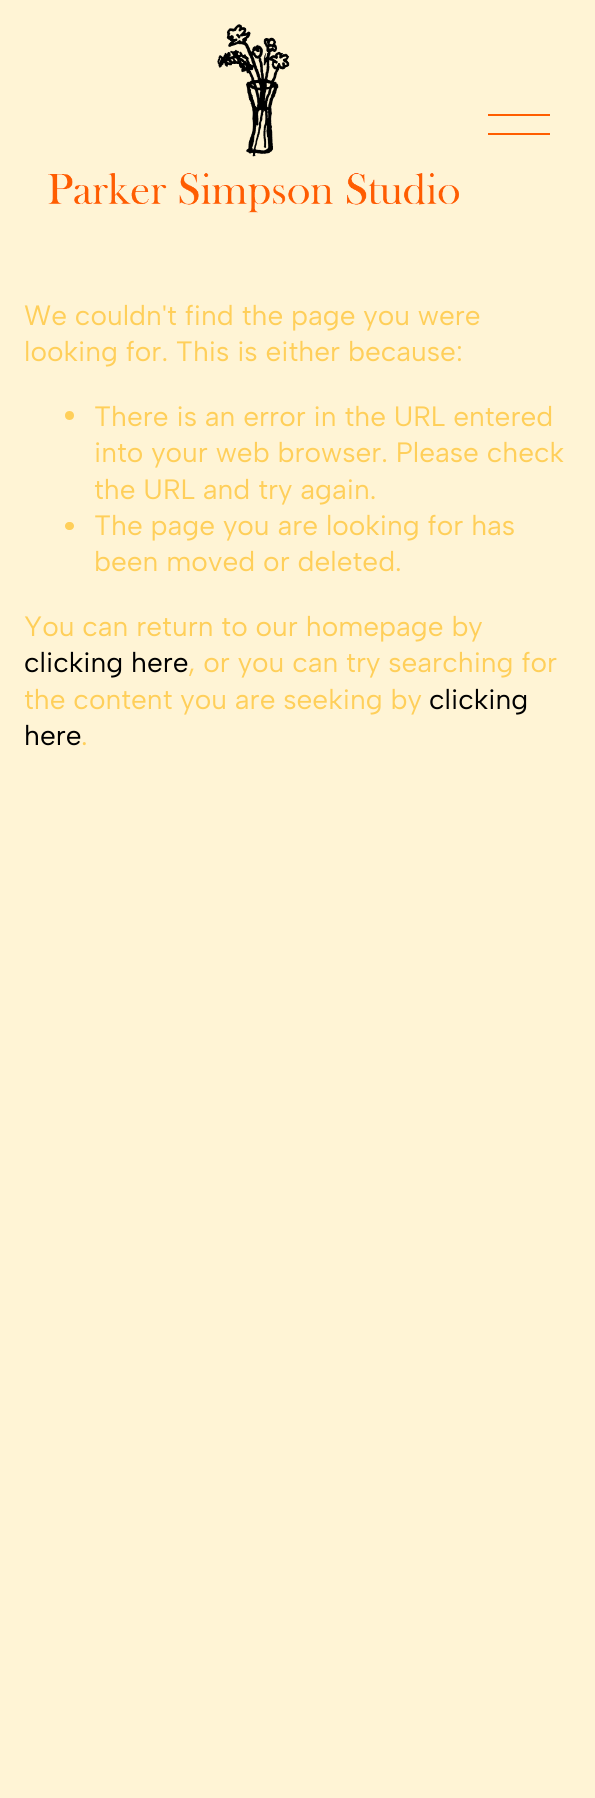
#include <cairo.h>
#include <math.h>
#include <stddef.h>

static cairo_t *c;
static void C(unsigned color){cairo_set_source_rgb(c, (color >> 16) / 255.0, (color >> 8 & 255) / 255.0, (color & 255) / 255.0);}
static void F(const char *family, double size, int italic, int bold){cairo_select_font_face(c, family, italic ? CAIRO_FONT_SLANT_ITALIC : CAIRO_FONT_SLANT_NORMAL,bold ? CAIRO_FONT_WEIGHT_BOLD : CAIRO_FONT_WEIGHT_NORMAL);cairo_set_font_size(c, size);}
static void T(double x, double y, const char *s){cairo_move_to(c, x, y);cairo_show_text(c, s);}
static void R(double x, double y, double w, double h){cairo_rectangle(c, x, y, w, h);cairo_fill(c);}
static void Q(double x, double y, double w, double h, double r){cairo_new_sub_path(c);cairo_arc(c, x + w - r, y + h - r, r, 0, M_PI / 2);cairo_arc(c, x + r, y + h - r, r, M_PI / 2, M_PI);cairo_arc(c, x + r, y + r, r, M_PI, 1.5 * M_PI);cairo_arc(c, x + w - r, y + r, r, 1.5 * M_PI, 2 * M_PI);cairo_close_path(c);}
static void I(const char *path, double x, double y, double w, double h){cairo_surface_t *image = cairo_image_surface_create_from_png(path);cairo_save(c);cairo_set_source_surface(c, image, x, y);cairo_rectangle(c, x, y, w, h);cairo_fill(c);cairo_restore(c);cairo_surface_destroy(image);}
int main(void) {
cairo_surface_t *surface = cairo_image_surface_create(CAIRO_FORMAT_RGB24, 595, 1798);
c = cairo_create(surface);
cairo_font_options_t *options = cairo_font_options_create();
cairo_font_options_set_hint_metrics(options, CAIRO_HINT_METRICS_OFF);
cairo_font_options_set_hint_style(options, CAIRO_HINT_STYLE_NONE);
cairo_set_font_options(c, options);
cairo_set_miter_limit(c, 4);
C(0xfff4d5);
cairo_paint(c);
I("1.png",48,24,411,189);
C(0xff5d00);
R(488,114,62,2);
R(488,133,62,2);
F("Albert Sans",28,0,0);
C(0xffcf5a);
T(24,325,"We couldn't find the page you were");
T(24,361,"looking for. This is either because:");
cairo_new_path(c);
cairo_arc(c,69.5,415.5,4.5,0,2 * M_PI);
cairo_fill(c);
T(94,426,"There is an error in the URL entered");
T(94,462,"into your web browser. Please check");
T(94,499,"the URL and try again.");
Q(65,522,9,8,4);
cairo_fill(c);
T(94,535,"The page you are looking for has");
T(94,571,"been moved or deleted.");
T(24,636,"You can return to our homepage by");
C(0x000000);
T(24,672,"clicking here");
C(0xffcf5a);
T(188,672,", or you can try searching for");
T(24,709,"the content you are seeking by");
C(0x000000);
T(429,709,"clicking");
T(24,745,"here");
C(0xffcf5a);
T(81,745,".");
cairo_surface_write_to_png(surface, "o.png");
cairo_font_options_destroy(options);
cairo_destroy(c);
cairo_surface_destroy(surface);
return 0;
}
